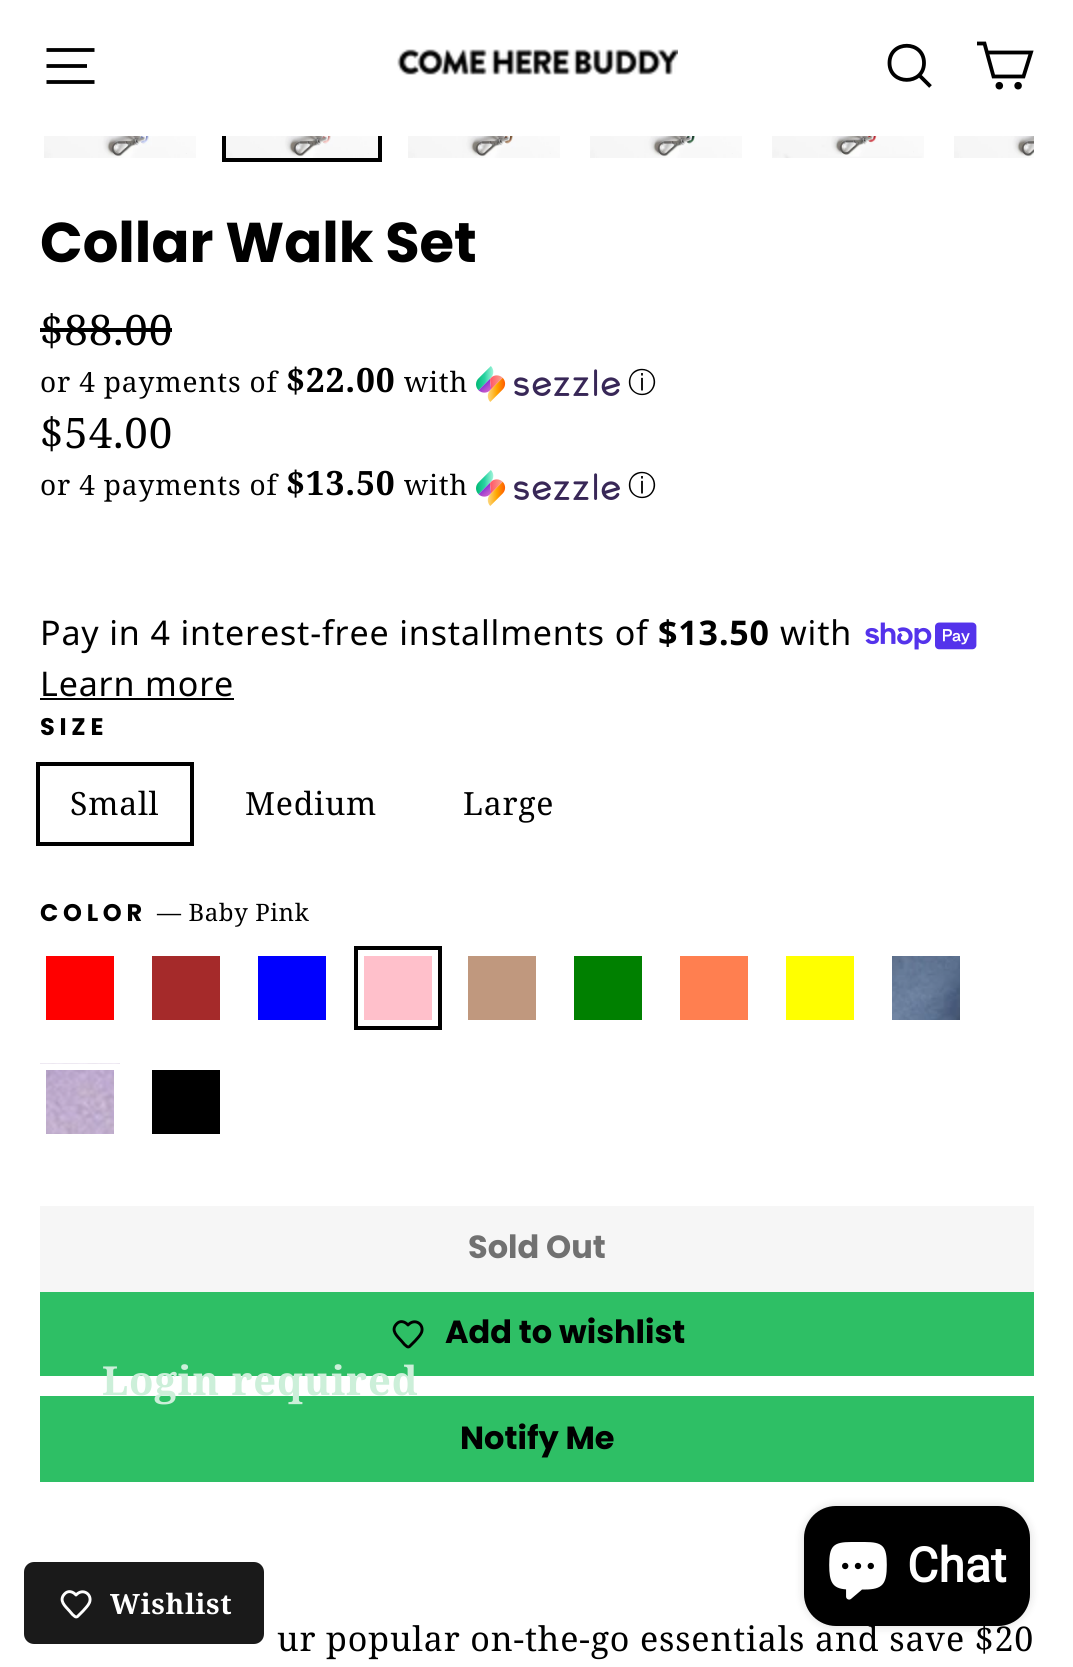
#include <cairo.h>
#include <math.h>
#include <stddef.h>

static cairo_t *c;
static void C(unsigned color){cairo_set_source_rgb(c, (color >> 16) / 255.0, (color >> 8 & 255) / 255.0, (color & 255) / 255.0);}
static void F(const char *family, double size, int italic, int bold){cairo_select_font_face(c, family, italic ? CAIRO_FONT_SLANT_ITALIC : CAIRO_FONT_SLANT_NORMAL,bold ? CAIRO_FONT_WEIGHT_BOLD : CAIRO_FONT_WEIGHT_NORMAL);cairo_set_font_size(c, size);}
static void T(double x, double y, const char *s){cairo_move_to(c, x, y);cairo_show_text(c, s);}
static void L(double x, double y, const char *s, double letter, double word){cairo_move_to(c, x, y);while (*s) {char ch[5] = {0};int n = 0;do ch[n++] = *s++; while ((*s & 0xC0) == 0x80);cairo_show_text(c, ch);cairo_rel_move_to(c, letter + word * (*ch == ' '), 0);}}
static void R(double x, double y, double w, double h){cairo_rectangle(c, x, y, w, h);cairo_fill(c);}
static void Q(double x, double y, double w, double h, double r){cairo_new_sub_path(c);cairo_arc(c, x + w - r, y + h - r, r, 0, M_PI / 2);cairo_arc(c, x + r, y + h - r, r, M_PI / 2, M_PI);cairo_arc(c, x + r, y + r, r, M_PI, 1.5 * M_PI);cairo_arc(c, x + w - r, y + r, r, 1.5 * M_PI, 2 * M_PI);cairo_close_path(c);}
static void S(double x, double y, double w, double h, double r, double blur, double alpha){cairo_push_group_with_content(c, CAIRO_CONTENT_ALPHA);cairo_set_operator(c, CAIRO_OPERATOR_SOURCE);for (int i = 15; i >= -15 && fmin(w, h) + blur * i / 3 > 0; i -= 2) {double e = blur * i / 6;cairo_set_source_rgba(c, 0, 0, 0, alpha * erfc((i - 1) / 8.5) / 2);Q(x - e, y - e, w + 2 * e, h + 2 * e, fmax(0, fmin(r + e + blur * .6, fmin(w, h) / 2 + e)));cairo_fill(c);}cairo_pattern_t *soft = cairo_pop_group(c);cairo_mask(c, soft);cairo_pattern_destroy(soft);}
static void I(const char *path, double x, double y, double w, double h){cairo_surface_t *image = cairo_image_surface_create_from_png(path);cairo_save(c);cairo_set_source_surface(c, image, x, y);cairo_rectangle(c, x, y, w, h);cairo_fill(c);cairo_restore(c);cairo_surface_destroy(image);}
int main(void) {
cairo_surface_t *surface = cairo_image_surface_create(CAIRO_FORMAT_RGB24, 1073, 1667);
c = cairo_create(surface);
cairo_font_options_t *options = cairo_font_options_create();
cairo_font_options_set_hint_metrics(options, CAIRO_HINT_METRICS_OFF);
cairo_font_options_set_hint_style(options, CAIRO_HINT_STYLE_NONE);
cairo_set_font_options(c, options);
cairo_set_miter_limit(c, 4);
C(0xffffff);
cairo_paint(c);
cairo_rectangle(c,224,4,156,156);
C(0x000000);
cairo_set_line_width(c,4);
cairo_stroke(c);
C(0xffffff);
R(222,2,160,134);
cairo_new_path(c);
cairo_move_to(c,46.5,50);
cairo_line_to(c,94.5,50);
cairo_move_to(c,46.5,66);
cairo_line_to(c,87,66);
cairo_move_to(c,46.5,82);
cairo_line_to(c,94.5,82);
C(0x000000);
cairo_set_line_width(c,3.8);
cairo_stroke(c);
I("1.png",397,49,281,26);
cairo_new_path(c);
cairo_move_to(c,924,63);
cairo_curve_to(c,924,85.5,889.5,85.5,889.5,63);
cairo_curve_to(c,889.5,40,924,40,924,63);
cairo_close_path(c);
cairo_move_to(c,930.5,86.5);
cairo_line_to(c,919.5,75.5);
cairo_stroke(c);
cairo_new_path(c);
cairo_move_to(c,987,52.5);
cairo_line_to(c,1031,52.5);
cairo_line_to(c,1023.5,76.5);
cairo_line_to(c,993.5,76.5);
cairo_line_to(c,984.5,43.5);
cairo_line_to(c,977,43.5);
cairo_stroke(c);
cairo_arc(c,999.3,85.7,1.9,0,2 * M_PI);
cairo_stroke(c);
cairo_arc(c,1018.1,85.7,1.9,0,2 * M_PI);
cairo_stroke(c);
I("2.png",44,136,152,22);
I("3.png",226,136,152,22);
I("4.png",408,136,152,22);
I("5.png",590,136,152,22);
I("6.png",772,136,152,22);
I("7.png",954,136,80,22);
F("Poppins",56,0,1);
T(40,262,"Collar Walk Set");
F("Noto Serif",42,0,0);
L(40,345,"$88.00",.85,0);
R(40,328,132,4);
F("Noto Serif",28,0,0);
L(40,392,"or 4 payments of",.85,0);
F("Noto Serif",33.5,0,1);
L(286,392,"$22.00",.85,0);
F("Noto Serif",28,0,0);
L(404,392,"with",.85,0);
I("8.png",476,366,144,36);
F("WenQuanYi Zen Hei Medium",28,0,0);
L(628,392,"ⓘ",.85,0);
F("Noto Serif",42,0,0);
L(40,448,"$54.00",.85,0);
F("Noto Serif",28,0,0);
L(40,495,"or 4 payments of",.85,0);
F("Noto Serif",33.5,0,1);
L(286,495,"$13.50",.85,0);
F("Noto Serif",28,0,0);
L(404,495,"with",.85,0);
I("8.png",476,470,144,36);
F("WenQuanYi Zen Hei Medium",28,0,0);
L(628,495,"ⓘ",.85,0);
F("Noto Sans",34,0,0);
L(40,645,"Pay in 4 interest-free installments of",.85,0);
F("Noto Sans",34,0,1);
L(658,645,"$13.50",.85,0);
F("Noto Sans",34,0,0);
L(780,645,"with",.85,0);
I("9.png",865,622,112,28);
L(40,696,"Learn more",.85,0);
R(40,698,194,2);
F("Poppins",24,0,1);
L(40,735,"SIZE",4.75,0);
cairo_rectangle(c,38,764,154,80);
cairo_set_line_width(c,4);
cairo_stroke(c);
F("Noto Serif",32,0,0);
L(70,815,"Small",.75,0);
L(245,815,"Medium",.75,0);
L(463,815,"Large",.75,0);
F("Poppins",24,0,1);
L(40,921,"COLOR",4.75,0);
F("Noto Serif",24,0,0);
L(157,921,"— Baby Pink",.6,0);
C(0xff0000);
R(46,956,68,64);
C(0xa52a2a);
R(152,956,68,64);
C(0x0000ff);
R(258,956,68,64);
cairo_rectangle(c,356,948,84,80);
C(0x000000);
cairo_stroke(c);
C(0xffc0cb);
R(364,956,68,64);
C(0xc0987e);
R(468,956,68,64);
C(0x008000);
R(574,956,68,64);
C(0xff7f50);
R(680,956,68,64);
C(0xffff00);
R(786,956,68,64);
I("10.png",892,956,68,64);
I("11.png",40,1063,80,71);
cairo_rectangle(c,43,1067,74,70);
C(0xffffff);
cairo_set_line_width(c,6);
cairo_stroke(c);
C(0x000000);
R(152,1070,68,64);
C(0xf6f6f6);
R(40,1206,994,86);
F("Poppins",32,0,1);
C(0x717171);
T(468,1258,"Sold Out");
C(0x2ebf65);
R(40,1292,994,84);
cairo_new_path(c);
cairo_move_to(c,396.5,1324);
cairo_curve_to(c,400,1320,405,1321.5,408,1325);
cairo_curve_to(c,415,1317.5,424.5,1324.5,421.5,1332.5);
cairo_curve_to(c,420,1336,417,1338.5,415,1341);
cairo_line_to(c,409.5,1346.5);
cairo_curve_to(c,407.5,1348,406,1345.5,404.5,1344.5);
cairo_line_to(c,401.5,1341);
cairo_curve_to(c,397,1336,390.5,1330.5,396.5,1324);
cairo_close_path(c);
C(0x000000);
cairo_set_line_width(c,2.9);
cairo_set_line_cap(c,CAIRO_LINE_CAP_ROUND);
cairo_set_line_join(c,CAIRO_LINE_JOIN_ROUND);
cairo_stroke(c);
T(445,1343,"Add to wishlist");
C(0x2ebf65);
R(40,1396,994,86);
C(0x000000);
T(460,1449,"Notify Me");
F("Noto Serif",34,0,0);
L(277,1651,"ur popular on-the-go essentials and save $20",.85,0);
F("Noto Serif",40,0,1);
C(0xccefd9);
L(102,1395,"Login required",.85,0);
C(0x1a1a1a);
Q(24,1562,240,82,10);
cairo_fill(c);
cairo_new_path(c);
cairo_move_to(c,64.5,1594);
cairo_curve_to(c,68,1590,73,1591.5,76,1595);
cairo_curve_to(c,83,1587.5,92.5,1594.5,89.5,1602.5);
cairo_curve_to(c,88,1606,85,1608.5,83,1611);
cairo_line_to(c,77.5,1616.5);
cairo_curve_to(c,75.5,1618,74,1615.5,72.5,1614.5);
cairo_line_to(c,69.5,1611);
cairo_curve_to(c,65,1606,58.5,1600.5,64.5,1594);
cairo_close_path(c);
C(0xffffff);
cairo_stroke(c);
F("Noto Serif",28,0,1);
L(110,1614,"Wishlist",.75,0);
C(0x000000);
S(804,1506,226,120,32,5,.15);
C(0x000000);
Q(804,1506,226,120,32);
cairo_fill(c);
I("12.png",829,1542,58,58);
F("Roboto",48,0,1);
C(0xffffff);
T(907,1582,"Chat");
cairo_surface_write_to_png(surface, "o.png");
cairo_font_options_destroy(options);
cairo_destroy(c);
cairo_surface_destroy(surface);
return 0;
}
